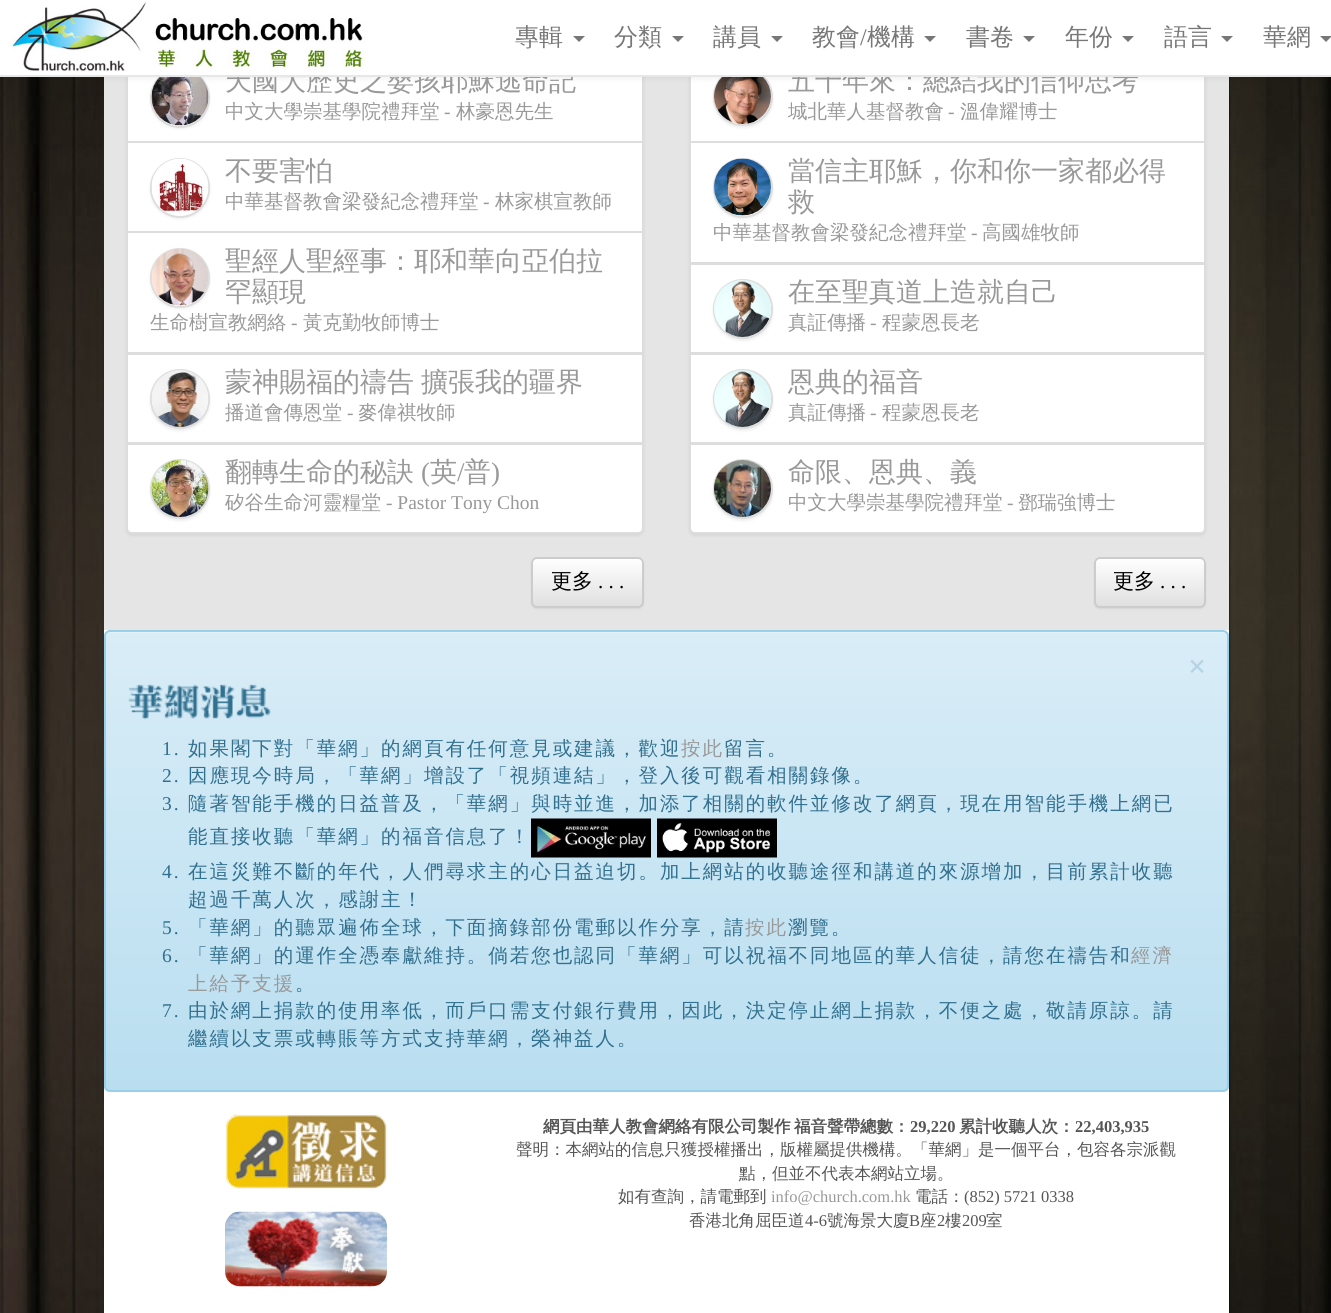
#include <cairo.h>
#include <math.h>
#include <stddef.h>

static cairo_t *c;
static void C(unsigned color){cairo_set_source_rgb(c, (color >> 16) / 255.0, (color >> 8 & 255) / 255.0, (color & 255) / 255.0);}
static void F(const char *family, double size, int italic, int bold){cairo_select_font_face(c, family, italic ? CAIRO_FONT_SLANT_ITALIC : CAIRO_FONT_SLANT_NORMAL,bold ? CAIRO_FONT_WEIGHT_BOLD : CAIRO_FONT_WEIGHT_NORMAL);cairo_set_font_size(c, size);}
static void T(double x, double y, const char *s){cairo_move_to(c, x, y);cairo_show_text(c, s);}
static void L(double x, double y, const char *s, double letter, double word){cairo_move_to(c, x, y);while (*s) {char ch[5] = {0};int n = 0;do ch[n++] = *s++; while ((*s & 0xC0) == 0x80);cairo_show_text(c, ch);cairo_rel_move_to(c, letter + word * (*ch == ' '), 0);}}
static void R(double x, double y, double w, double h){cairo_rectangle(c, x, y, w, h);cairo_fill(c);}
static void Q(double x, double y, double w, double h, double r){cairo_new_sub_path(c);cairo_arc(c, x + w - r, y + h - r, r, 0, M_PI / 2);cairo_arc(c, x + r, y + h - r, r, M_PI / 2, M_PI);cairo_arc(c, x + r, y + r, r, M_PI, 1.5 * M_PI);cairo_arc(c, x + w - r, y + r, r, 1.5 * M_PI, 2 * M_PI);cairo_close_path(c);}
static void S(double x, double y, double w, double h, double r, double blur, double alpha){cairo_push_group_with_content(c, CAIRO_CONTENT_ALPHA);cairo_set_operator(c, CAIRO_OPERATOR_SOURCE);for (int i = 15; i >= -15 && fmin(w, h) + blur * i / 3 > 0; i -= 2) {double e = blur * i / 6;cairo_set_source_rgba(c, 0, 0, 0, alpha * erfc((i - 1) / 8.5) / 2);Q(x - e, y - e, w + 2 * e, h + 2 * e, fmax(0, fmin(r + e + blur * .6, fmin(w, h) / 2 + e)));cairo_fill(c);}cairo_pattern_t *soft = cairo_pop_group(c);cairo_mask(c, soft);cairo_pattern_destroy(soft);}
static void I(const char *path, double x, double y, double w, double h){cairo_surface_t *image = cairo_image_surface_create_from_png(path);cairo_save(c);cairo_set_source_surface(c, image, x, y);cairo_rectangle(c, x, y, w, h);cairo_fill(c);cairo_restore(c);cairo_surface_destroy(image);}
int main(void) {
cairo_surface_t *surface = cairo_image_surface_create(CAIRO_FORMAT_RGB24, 1331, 1313);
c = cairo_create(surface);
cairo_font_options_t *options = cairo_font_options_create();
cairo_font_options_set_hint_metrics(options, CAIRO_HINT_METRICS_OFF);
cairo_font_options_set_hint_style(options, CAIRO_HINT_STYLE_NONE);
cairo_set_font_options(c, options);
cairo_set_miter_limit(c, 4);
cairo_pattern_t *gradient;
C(0xffffff);
cairo_paint(c);
I("1.png",0,77,1331,1236);
C(0xe5e5e5);
R(104,77,1125,553);
C(0x000000);
S(126,53,518,483,6,1.5,.07);
C(0xffffff);
R(128,77,514,64);
cairo_rectangle(c,127,52,516,90);
C(0xdddddd);
cairo_stroke(c);
C(0x000000);
S(150,69,60,60,30,1.5,.07);
C(0xffffff);
cairo_arc(c,180,98,29,0,2 * M_PI);
cairo_fill_preserve(c);
C(0xdddddd);
cairo_stroke(c);
I("3.png",151,77,58,49);
C(0x000000);
S(689,53,517,483,6,1.5,.07);
C(0xffffff);
R(691,77,513,64);
cairo_rectangle(c,690,52,515,90);
C(0xdddddd);
cairo_stroke(c);
C(0x000000);
S(713,69,60,59,29.5,1.5,.07);
C(0xffffff);
Q(714,69,58,56,28);
cairo_fill_preserve(c);
C(0xdddddd);
cairo_stroke(c);
I("8.png",714,77,57,47);
C(0x000000);
S(0,2,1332,76,0,4,.07);
F("WenQuanYi Zen Hei Medium",27,0,0);
C(0x999999);
T(225,90,"天國大歷史之嬰孩耶穌逃命記");
T(788,90,"五十年來：總結我的信仰思考");
C(0xe7e7e7);
R(0,75,1331,2);
C(0xffffff);
R(0,0,1331,75);
I("2.png",12,2,354,70);
F("WenQuanYi Zen Hei Medium",24,0,0);
C(0x777777);
T(515,45,"專輯");
cairo_new_path(c);
cairo_move_to(c,573,36);
cairo_line_to(c,585,36);
cairo_line_to(c,579,42);
cairo_close_path(c);
cairo_fill(c);
T(614,45,"分類");
cairo_new_path(c);
cairo_move_to(c,672,36);
cairo_line_to(c,684,36);
cairo_line_to(c,678,42);
cairo_close_path(c);
cairo_fill(c);
T(713,45,"講員");
cairo_new_path(c);
cairo_move_to(c,771,36);
cairo_line_to(c,783,36);
cairo_line_to(c,777,42);
cairo_close_path(c);
cairo_fill(c);
T(812,45,"教會");
F("Liberation Serif",24,0,0);
T(860,45,"/");
F("WenQuanYi Zen Hei Medium",24,0,0);
T(867,45,"機構");
cairo_new_path(c);
cairo_move_to(c,924,36);
cairo_line_to(c,936,36);
cairo_line_to(c,930,42);
cairo_close_path(c);
cairo_fill(c);
T(966,45,"書卷");
cairo_new_path(c);
cairo_move_to(c,1023,36);
cairo_line_to(c,1035,36);
cairo_line_to(c,1029,42);
cairo_close_path(c);
cairo_fill(c);
T(1065,45,"年份");
cairo_new_path(c);
cairo_move_to(c,1122,36);
cairo_line_to(c,1134,36);
cairo_line_to(c,1128,42);
cairo_close_path(c);
cairo_fill(c);
T(1164,45,"語言");
cairo_new_path(c);
cairo_move_to(c,1221,36);
cairo_line_to(c,1233,36);
cairo_line_to(c,1227,42);
cairo_close_path(c);
cairo_fill(c);
T(1263,45,"華網");
cairo_new_path(c);
cairo_move_to(c,1320,36);
cairo_line_to(c,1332,36);
cairo_line_to(c,1326,42);
cairo_close_path(c);
cairo_fill(c);
C(0xffffff);
R(104,630,1125,462);
F("WenQuanYi Zen Hei Medium",19.5,0,0);
C(0x999999);
T(225,118,"中文大學崇基學院禮拜堂");
F("Liberation Serif",19.5,0,0);
T(444,118,"-");
F("WenQuanYi Zen Hei Medium",19.5,0,0);
T(456,118,"林豪恩先生");
C(0xffffff);
cairo_rectangle(c,127,142,516,90);
cairo_fill_preserve(c);
C(0xdddddd);
cairo_stroke(c);
C(0x000000);
S(150,159,60,60,30,1.5,.07);
C(0xffffff);
cairo_arc(c,180,188,29,0,2 * M_PI);
cairo_fill_preserve(c);
C(0xdddddd);
cairo_stroke(c);
I("4.png",151,158,58,56);
F("WenQuanYi Zen Hei Medium",27,0,0);
C(0x999999);
T(225,180,"不要害怕");
F("WenQuanYi Zen Hei Medium",19.5,0,0);
T(225,208,"中華基督教會梁發紀念禮拜堂");
F("Liberation Serif",19.5,0,0);
T(483,208,"-");
F("WenQuanYi Zen Hei Medium",19.5,0,0);
T(495,208,"林家棋宣教師");
C(0xffffff);
cairo_rectangle(c,127,232,516,121);
cairo_fill_preserve(c);
C(0xdddddd);
cairo_stroke(c);
C(0x000000);
S(150,249,60,60,30,1.5,.07);
C(0xffffff);
cairo_arc(c,180,278,29,0,2 * M_PI);
cairo_fill_preserve(c);
C(0xdddddd);
cairo_stroke(c);
I("5.png",151,248,57,58);
F("WenQuanYi Zen Hei Medium",27,0,0);
C(0x999999);
T(225,270,"聖經人聖經事：耶和華向亞伯拉");
T(225,301,"罕顯現");
F("WenQuanYi Zen Hei Medium",19.5,0,0);
T(150,329,"生命樹宣教網絡");
F("Liberation Serif",19.5,0,0);
T(291,329,"-");
F("WenQuanYi Zen Hei Medium",19.5,0,0);
T(303,329,"黃克勤牧師博士");
C(0xffffff);
cairo_rectangle(c,127,354,516,89);
cairo_fill_preserve(c);
C(0xdddddd);
cairo_stroke(c);
C(0x000000);
S(150,371,60,60,30,1.5,.07);
C(0xffffff);
cairo_arc(c,180,399,29,0,2 * M_PI);
cairo_fill_preserve(c);
C(0xdddddd);
cairo_stroke(c);
I("6.png",151,370,58,57);
F("WenQuanYi Zen Hei Medium",27,0,0);
C(0x999999);
L(225,391,"蒙神賜福的禱告 擴張我的疆界",0,-1);
F("WenQuanYi Zen Hei Medium",19.5,0,0);
T(225,419,"播道會傳恩堂");
F("Liberation Serif",19.5,0,0);
T(347,419,"-");
F("WenQuanYi Zen Hei Medium",19.5,0,0);
T(358,419,"麥偉祺牧師");
C(0xffffff);
cairo_new_path(c);
cairo_move_to(c,127,444);
cairo_line_to(c,643,444);
cairo_line_to(c,643,528);
cairo_curve_to(c,643,531,641,533,638,533);
cairo_line_to(c,132,533);
cairo_curve_to(c,129,533,127,531,127,528);
cairo_close_path(c);
cairo_fill_preserve(c);
C(0xdddddd);
cairo_stroke(c);
C(0x000000);
S(150,461,60,60,30,1.5,.07);
C(0xffffff);
cairo_arc(c,180,489,29,0,2 * M_PI);
cairo_fill_preserve(c);
C(0xdddddd);
cairo_stroke(c);
I("7.png",151,460,58,57);
F("WenQuanYi Zen Hei Medium",27,0,0);
C(0x999999);
T(225,481,"翻轉生命的秘訣");
F("Liberation Serif",27,0,0);
T(421,481,"(");
F("WenQuanYi Zen Hei Medium",27,0,0);
T(430,481,"英");
F("Liberation Serif",27,0,0);
T(457,481,"/");
F("WenQuanYi Zen Hei Medium",27,0,0);
T(464,481,"普");
F("Liberation Serif",27,0,0);
T(491,481,")");
F("WenQuanYi Zen Hei Medium",19.5,0,0);
T(225,509,"矽谷生命河靈糧堂");
F("Liberation Serif",19.5,0,0);
T(386,509,"- Pastor Tony Chon");
C(0x000000);
S(531,558,113,51,6,1,.07);
cairo_save(c);
Q(531,557,113,51,6);
cairo_clip(c);
gradient = cairo_pattern_create_linear(587,558,587,606);
cairo_pattern_add_color_stop_rgba(gradient,0,1,1,1,1);
cairo_pattern_add_color_stop_rgba(gradient,1,0.878,0.878,0.878,1);
cairo_set_source(c,gradient);
cairo_pattern_destroy(gradient);
R(531,558,113,48);
cairo_restore(c);
Q(532,558,111,49,5);
C(0xcccccc);
cairo_stroke(c);
F("WenQuanYi Zen Hei Medium",21,0,0);
C(0x000000);
T(551,588,"更多");
F("Liberation Serif",21,0,0);
T(598,588,". . .");
F("WenQuanYi Zen Hei Medium",19.5,0,0);
C(0x999999);
T(788,118,"城北華人基督教會");
F("Liberation Serif",19.5,0,0);
T(948,118,"-");
F("WenQuanYi Zen Hei Medium",19.5,0,0);
T(960,118,"溫偉耀博士");
C(0xffffff);
cairo_rectangle(c,690,142,515,121);
cairo_fill_preserve(c);
C(0xdddddd);
cairo_stroke(c);
C(0x000000);
S(713,159,60,60,30,1.5,.07);
C(0xffffff);
cairo_arc(c,743,188,29,0,2 * M_PI);
cairo_fill_preserve(c);
C(0xdddddd);
cairo_stroke(c);
I("9.png",714,158,57,58);
F("WenQuanYi Zen Hei Medium",27,0,0);
C(0x999999);
T(788,180,"當信主耶穌，你和你一家都必得");
T(788,211,"救");
F("WenQuanYi Zen Hei Medium",19.5,0,0);
T(713,239,"中華基督教會梁發紀念禮拜堂");
F("Liberation Serif",19.5,0,0);
T(971,239,"-");
F("WenQuanYi Zen Hei Medium",19.5,0,0);
T(982,239,"高國雄牧師");
C(0xffffff);
cairo_rectangle(c,690,264,515,89);
cairo_fill_preserve(c);
C(0xdddddd);
cairo_stroke(c);
C(0x000000);
S(713,281,60,60,30,1.5,.07);
C(0xffffff);
cairo_arc(c,743,309,29,0,2 * M_PI);
cairo_fill_preserve(c);
C(0xdddddd);
cairo_stroke(c);
I("10.png",714,280,57,57);
F("WenQuanYi Zen Hei Medium",27,0,0);
C(0x999999);
T(788,301,"在至聖真道上造就自己");
F("WenQuanYi Zen Hei Medium",19.5,0,0);
T(788,329,"真証傳播");
F("Liberation Serif",19.5,0,0);
T(870,329,"-");
F("WenQuanYi Zen Hei Medium",19.5,0,0);
T(882,329,"程蒙恩長老");
C(0xffffff);
cairo_rectangle(c,690,354,515,89);
cairo_fill_preserve(c);
C(0xdddddd);
cairo_stroke(c);
C(0x000000);
S(713,371,60,60,30,1.5,.07);
C(0xffffff);
cairo_arc(c,743,399,29,0,2 * M_PI);
cairo_fill_preserve(c);
C(0xdddddd);
cairo_stroke(c);
I("11.png",714,370,57,57);
F("WenQuanYi Zen Hei Medium",27,0,0);
C(0x999999);
T(788,391,"恩典的福音");
F("WenQuanYi Zen Hei Medium",19.5,0,0);
T(788,419,"真証傳播");
F("Liberation Serif",19.5,0,0);
T(870,419,"-");
F("WenQuanYi Zen Hei Medium",19.5,0,0);
T(882,419,"程蒙恩長老");
C(0xffffff);
cairo_new_path(c);
cairo_move_to(c,690,444);
cairo_line_to(c,1205,444);
cairo_line_to(c,1205,528);
cairo_curve_to(c,1205,531,1203,533,1200,533);
cairo_line_to(c,695,533);
cairo_curve_to(c,692,533,690,531,690,528);
cairo_close_path(c);
cairo_fill_preserve(c);
C(0xdddddd);
cairo_stroke(c);
C(0x000000);
S(713,461,60,60,30,1.5,.07);
C(0xffffff);
cairo_arc(c,743,489,29,0,2 * M_PI);
cairo_fill_preserve(c);
C(0xdddddd);
cairo_stroke(c);
I("12.png",714,460,57,57);
F("WenQuanYi Zen Hei Medium",27,0,0);
C(0x999999);
T(788,481,"命限、恩典、義");
F("WenQuanYi Zen Hei Medium",19.5,0,0);
T(788,509,"中文大學崇基學院禮拜堂");
F("Liberation Serif",19.5,0,0);
T(1007,509,"-");
F("WenQuanYi Zen Hei Medium",19.5,0,0);
T(1018,509,"鄧瑞強博士");
C(0x000000);
S(1094,558,112,51,6,1,.07);
cairo_save(c);
Q(1094,557,112,51,6);
cairo_clip(c);
gradient = cairo_pattern_create_linear(1150,558,1150,606);
cairo_pattern_add_color_stop_rgba(gradient,0,1,1,1,1);
cairo_pattern_add_color_stop_rgba(gradient,1,0.878,0.878,0.878,1);
cairo_set_source(c,gradient);
cairo_pattern_destroy(gradient);
R(1094,558,112,48);
cairo_restore(c);
cairo_set_source_rgba(c,1,1,1,0.15);
cairo_new_path(c);
cairo_move_to(c,1100,560);
cairo_line_to(c,1200,560);
cairo_curve_to(c,1205,560,1204,568,1204,570);
cairo_line_to(c,1204,604);
cairo_curve_to(c,1205,603,1205,602,1205,601);
cairo_line_to(c,1205,563);
cairo_curve_to(c,1205,560,1203,558,1200,558);
cairo_line_to(c,1100,558);
cairo_curve_to(c,1097,558,1095,560,1095,563);
cairo_line_to(c,1095,564);
cairo_curve_to(c,1095,562,1097,560,1100,560);
cairo_close_path(c);
cairo_fill(c);
Q(1095,558,110,49,5);
C(0xcccccc);
cairo_stroke(c);
F("WenQuanYi Zen Hei Medium",21,0,0);
C(0x000000);
T(1113,588,"更多");
F("Liberation Serif",21,0,0);
T(1160,588,". . .");
C(0x000000);
S(104,632,1125,462,6,1.5,.05);
cairo_save(c);
Q(104,630,1125,462,6);
cairo_clip(c);
gradient = cairo_pattern_create_linear(666,631,666,1091);
cairo_pattern_add_color_stop_rgba(gradient,0,0.851,0.929,0.969,1);
cairo_pattern_add_color_stop_rgba(gradient,1,0.725,0.871,0.941,1);
cairo_set_source(c,gradient);
cairo_pattern_destroy(gradient);
R(104,632,1125,459);
cairo_restore(c);
C(0xe3f2f9);
cairo_new_path(c);
cairo_move_to(c,110,633);
cairo_line_to(c,1222,633);
cairo_curve_to(c,1225,633,1227,635,1227,638);
cairo_curve_to(c,1227,635,1225,632,1222,632);
cairo_line_to(c,110,632);
cairo_curve_to(c,107,632,105,635,105,638);
cairo_curve_to(c,105,635,107,633,110,633);
cairo_close_path(c);
cairo_fill(c);
Q(105,631,1123,460,5);
C(0x9acfea);
cairo_stroke(c);
F("Liberation Serif",32,0,1);
C(0xb5d3e2);
T(1188,677,"×");
I("13.png",128,684,35,36);
I("14.png",164,684,35,35);
I("15.png",200,684,35,35);
I("16.png",236,684,35,35);
F("Liberation Serif",19.5,0,0);
C(0x31708f);
L(162,755,"1.",1.95,0);
F("WenQuanYi Zen Hei Medium",19.5,0,0);
L(188,755,"如果閣下對「華網」的網頁有任何意見或建議，歡迎",1.95,0);
C(0x999999);
L(681,755,"按此",1.95,0);
C(0x31708f);
L(724,755,"留言。",1.95,0);
F("Liberation Serif",19.5,0,0);
L(162,782,"2.",1.95,0);
F("WenQuanYi Zen Hei Medium",19.5,0,0);
L(188,782,"因應現今時局，「華網」增設了「視頻連結」，登入後可觀看相關錄像。",1.95,0);
F("Liberation Serif",19.5,0,0);
L(162,810,"3.",1.95,0);
F("WenQuanYi Zen Hei Medium",19.5,0,0);
L(188,810,"隨著智能手機的日益普及，「華網」與時並進，加添了相關的軟件並修改了網頁，現在用智能手機上網已",1.95,0);
L(188,843,"能直接收聽「華網」的福音信息了！",1.95,0);
I("17.png",531,818,120,40);
I("18.png",657,818,120,40);
F("Liberation Serif",19.5,0,0);
L(162,878,"4.",1.95,0);
F("WenQuanYi Zen Hei Medium",19.5,0,0);
L(188,878,"在這災難不斷的年代，人們尋求主的心日益迫切。加上網站的收聽途徑和講道的來源增加，目前累計收聽",1.95,0);
L(188,906,"超過千萬人次，感謝主！",1.95,0);
F("Liberation Serif",19.5,0,0);
L(162,934,"5.",1.95,0);
F("WenQuanYi Zen Hei Medium",19.5,0,0);
L(188,934,"「華網」的聽眾遍佈全球，下面摘錄部份電郵以作分享，請",1.95,0);
C(0x999999);
L(745,934,"按此",1.95,0);
C(0x31708f);
L(788,934,"瀏覽。",1.95,0);
F("Liberation Serif",19.5,0,0);
L(162,962,"6.",1.95,0);
F("WenQuanYi Zen Hei Medium",19.5,0,0);
L(188,962,"「華網」的運作全憑奉獻維持。倘若您也認同「華網」可以祝福不同地區的華人信徒，請您在禱告和",1.95,0);
C(0x999999);
L(1131,962,"經濟",1.95,0);
L(188,990,"上給予支援",1.95,0);
C(0x31708f);
L(295,990,"。",1.95,0);
F("Liberation Serif",19.5,0,0);
L(162,1017,"7.",1.95,0);
F("WenQuanYi Zen Hei Medium",19.5,0,0);
L(188,1017,"由於網上捐款的使用率低，而戶口需支付銀行費用，因此，決定停止網上捐款，不便之處，敬請原諒。請",1.95,0);
L(188,1045,"繼續以支票或轉賬等方式支持華網，榮神益人。",1.95,0);
C(0xffffff);
R(104,1092,1125,221);
I("19.png",225,1114,162,75);
I("20.png",225,1211,162,76);
F("WenQuanYi Zen Hei",16.5,0,1);
C(0x555555);
T(543,1132,"網頁由華人教會網絡有限公司製作");
T(794,1132,"福音聲帶總數：");
F("Liberation Serif",16.5,0,1);
T(910,1132,"29,220");
F("WenQuanYi Zen Hei",16.5,0,1);
T(959,1132,"累計收聽人次：");
F("Liberation Serif",16.5,0,1);
T(1075,1132,"22,403,935");
F("WenQuanYi Zen Hei Medium",16.5,0,0);
T(516,1155,"聲明：本網站的信息只獲授權播出，版權屬提供機構。「華網」是一個平台，包容各宗派觀");
T(739,1179,"點，但並不代表本網站立場。");
T(618,1202,"如有查詢，請電郵到");
F("Liberation Serif",16.5,0,0);
C(0x999999);
T(771,1202,"info@church.com.hk");
F("WenQuanYi Zen Hei Medium",16.5,0,0);
C(0x555555);
T(915,1202,"電話：");
F("Liberation Serif",16.5,0,0);
T(964,1202,"(852) 5721 0338");
F("WenQuanYi Zen Hei Medium",16.5,0,0);
T(689,1226,"香港北角屈臣道");
F("Liberation Serif",16.5,0,0);
T(805,1226,"4-6");
F("WenQuanYi Zen Hei Medium",16.5,0,0);
T(827,1226,"號海景大廈");
F("Liberation Serif",16.5,0,0);
T(909,1226,"B");
F("WenQuanYi Zen Hei Medium",16.5,0,0);
T(920,1226,"座");
F("Liberation Serif",16.5,0,0);
T(937,1226,"2");
F("WenQuanYi Zen Hei Medium",16.5,0,0);
T(945,1226,"樓");
F("Liberation Serif",16.5,0,0);
T(962,1226,"209");
F("WenQuanYi Zen Hei Medium",16.5,0,0);
T(986,1226,"室");
cairo_surface_write_to_png(surface, "o.png");
cairo_font_options_destroy(options);
cairo_destroy(c);
cairo_surface_destroy(surface);
return 0;
}
